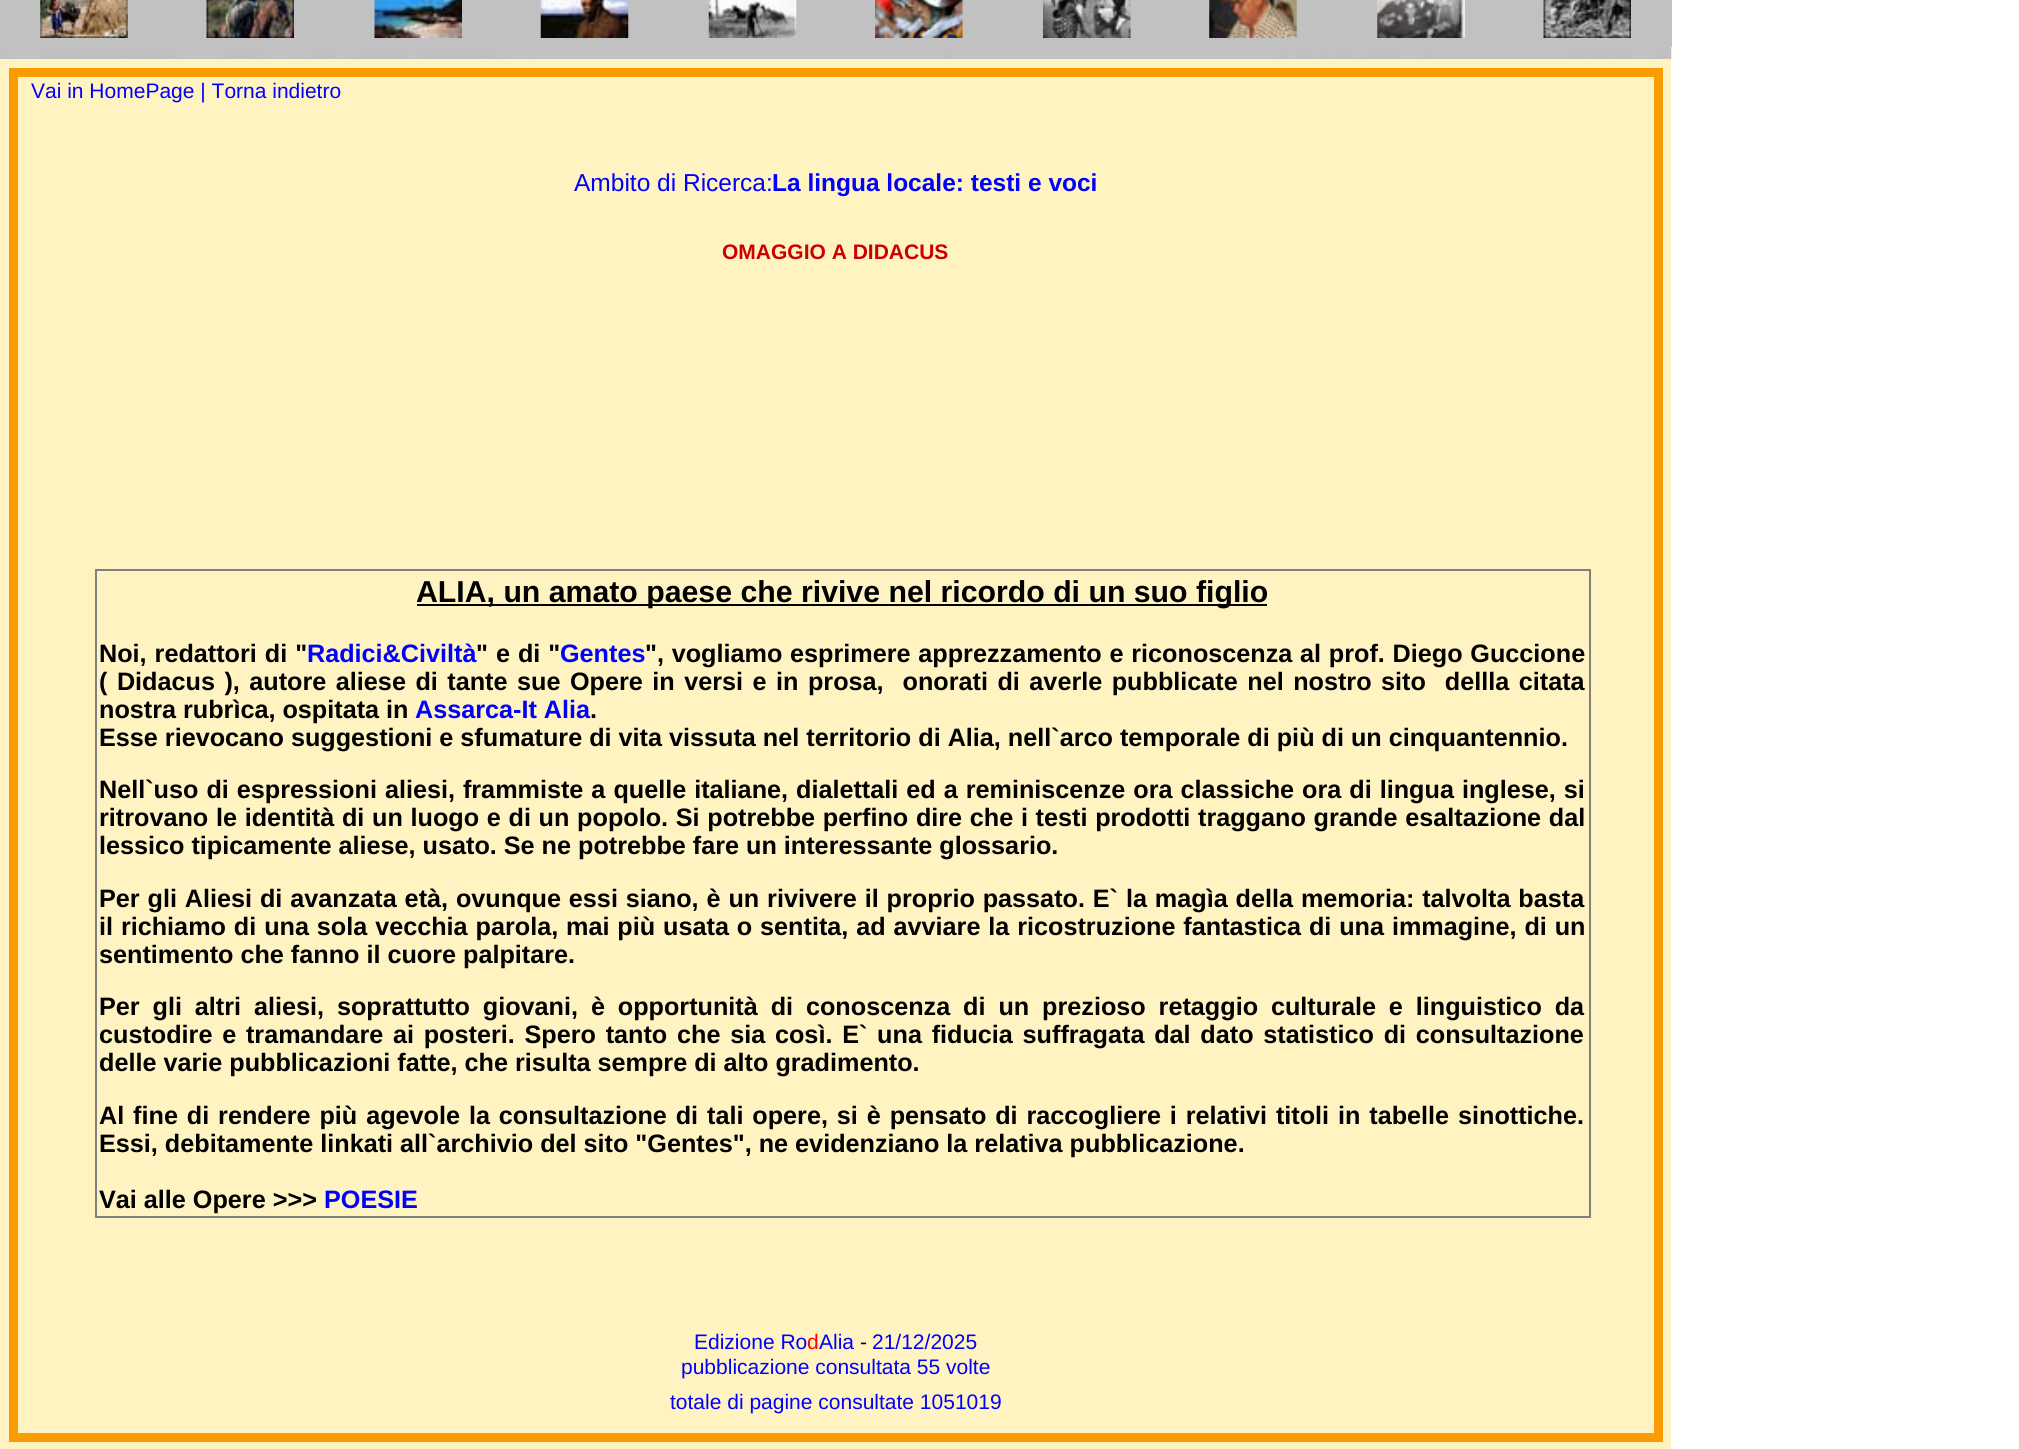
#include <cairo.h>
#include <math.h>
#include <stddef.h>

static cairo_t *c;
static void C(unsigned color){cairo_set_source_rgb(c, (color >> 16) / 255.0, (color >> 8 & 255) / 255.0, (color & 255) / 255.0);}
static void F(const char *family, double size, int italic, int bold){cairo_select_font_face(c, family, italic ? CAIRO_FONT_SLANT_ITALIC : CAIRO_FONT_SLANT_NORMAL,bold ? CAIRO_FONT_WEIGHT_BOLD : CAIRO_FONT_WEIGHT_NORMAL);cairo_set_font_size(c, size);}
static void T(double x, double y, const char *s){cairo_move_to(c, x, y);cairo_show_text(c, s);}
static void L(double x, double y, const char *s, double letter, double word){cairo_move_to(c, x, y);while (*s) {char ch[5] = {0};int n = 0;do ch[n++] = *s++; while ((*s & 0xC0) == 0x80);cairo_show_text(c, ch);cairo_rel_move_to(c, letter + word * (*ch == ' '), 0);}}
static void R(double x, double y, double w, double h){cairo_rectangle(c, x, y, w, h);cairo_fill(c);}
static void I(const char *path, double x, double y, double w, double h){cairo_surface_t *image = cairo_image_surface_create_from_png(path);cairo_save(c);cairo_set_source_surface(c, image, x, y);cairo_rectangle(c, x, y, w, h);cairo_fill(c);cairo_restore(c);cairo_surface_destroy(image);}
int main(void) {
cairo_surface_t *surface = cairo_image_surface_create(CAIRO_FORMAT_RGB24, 2019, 1449);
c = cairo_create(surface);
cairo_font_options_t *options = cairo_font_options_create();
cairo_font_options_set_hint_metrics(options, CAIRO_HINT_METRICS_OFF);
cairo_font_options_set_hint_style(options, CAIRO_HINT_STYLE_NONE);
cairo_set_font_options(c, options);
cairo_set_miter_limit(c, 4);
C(0xffffff);
cairo_paint(c);
C(0xfff3c2);
R(0,59,1671,1390);
I("1.png",0,47,1672,12);
C(0xc1c1c1);
R(0,0,1672,47);
I("2.png",40,0,88,38);
I("3.png",206,0,88,38);
I("4.png",374,0,88,38);
I("5.png",540,0,89,38);
I("6.png",708,0,89,38);
I("7.png",875,0,88,38);
I("8.png",1043,0,88,38);
I("9.png",1209,0,88,38);
I("10.png",1377,0,88,38);
I("11.png",1543,0,88,38);
C(0xfa9b02);
R(9,68,1654,1374);
C(0xfff3c2);
R(18,77,1636,1356);
F("Liberation Sans",21,0,0);
C(0x0000ff);
T(31,98,"Vai in HomePage | Torna indietro");
F("Liberation Sans",24.5,0,0);
T(574,191,"Ambito di Ricerca:");
F("Liberation Sans",24.5,0,1);
T(772,191,"La lingua locale: testi e voci");
F("Liberation Sans",21,0,1);
C(0xcc0000);
T(722,259,"OMAGGIO A DIDACUS");
C(0x808080);
R(95,569,1496,2);
R(1589,569,2,649);
R(95,1216,1496,2);
R(95,569,2,649);
C(0x000000);
R(417,604,850,2);
F("Liberation Sans",30.25,0,1);
T(416,602,"ALIA, un amato paese che rivive nel ricordo di un suo figlio");
F("Liberation Sans",25.2,0,1);
L(99,662,"Noi, redattori di \"",0,1);
C(0x0000ff);
T(307,662,"Radici&Civiltà");
C(0x000000);
L(476,662,"\" e di \"",0,1);
C(0x0000ff);
T(560,662,"Gentes");
C(0x000000);
L(645,662,"\", vogliamo esprimere apprezzamento e riconoscenza al prof. Diego Guccione",0,.75);
L(99,690,"( Didacus ), autore aliese di tante sue Opere in versi e in prosa,  onorati di averle pubblicate nel nostro sito  dellla citata",0,2.5);
T(99,718,"nostra rubrìca, ospitata in");
C(0x0000ff);
T(415,718,"Assarca-It Alia");
C(0x000000);
T(590,718,".");
T(99,746,"Esse rievocano suggestioni e sfumature di vita vissuta nel territorio di Alia, nell`arco temporale di più di un cinquantennio.");
L(99,798,"Nell`uso di espressioni aliesi, frammiste a quelle italiane, dialettali ed a reminiscenze ora classiche ora di lingua inglese, si",0,1);
L(99,826,"ritrovano le identità di un luogo e di un popolo. Si potrebbe perfino dire che i testi prodotti traggano grande esaltazione dal",0,.7);
T(99,854,"lessico tipicamente aliese, usato. Se ne potrebbe fare un interessante glossario.");
L(99,907,"Per gli Aliesi di avanzata età, ovunque essi siano, è un rivivere il proprio passato. E` la magìa della memoria: talvolta basta",0,.9);
L(99,935,"il richiamo di una sola vecchia parola, mai più usata o sentita, ad avviare la ricostruzione fantastica di una immagine, di un",0,.9);
T(99,963,"sentimento che fanno il cuore palpitare.");
L(99,1015,"Per gli altri aliesi, soprattutto giovani, è opportunità di conoscenza di un prezioso retaggio culturale e linguistico da",0,5.9);
L(99,1043,"custodire e tramandare ai posteri. Spero tanto che sia così. E` una fiducia suffragata dal dato statistico di consultazione",0,2.75);
T(99,1071,"delle varie pubblicazioni fatte, che risulta sempre di alto gradimento.");
L(99,1124,"Al fine di rendere più agevole la consultazione di tali opere, si è pensato di raccogliere i relativi titoli in tabelle sinottiche.",0,1.9);
T(99,1152,"Essi, debitamente linkati all`archivio del sito \"Gentes\", ne evidenziano la relativa pubblicazione.");
T(99,1208,"Vai alle Opere >>>");
C(0x0000ff);
T(324,1208,"POESIE");
F("Liberation Sans",21,0,0);
T(694,1349,"Edizione Ro");
C(0xff0000);
T(807,1349,"d");
C(0x0000ff);
T(819,1349,"Alia");
C(0x000000);
T(860,1349,"-");
C(0x0000ff);
T(872,1349,"21/12/2025");
T(681,1374,"pubblicazione consultata 55 volte");
T(670,1409,"totale di pagine consultate 1051019");
cairo_surface_write_to_png(surface, "o.png");
cairo_font_options_destroy(options);
cairo_destroy(c);
cairo_surface_destroy(surface);
return 0;
}
